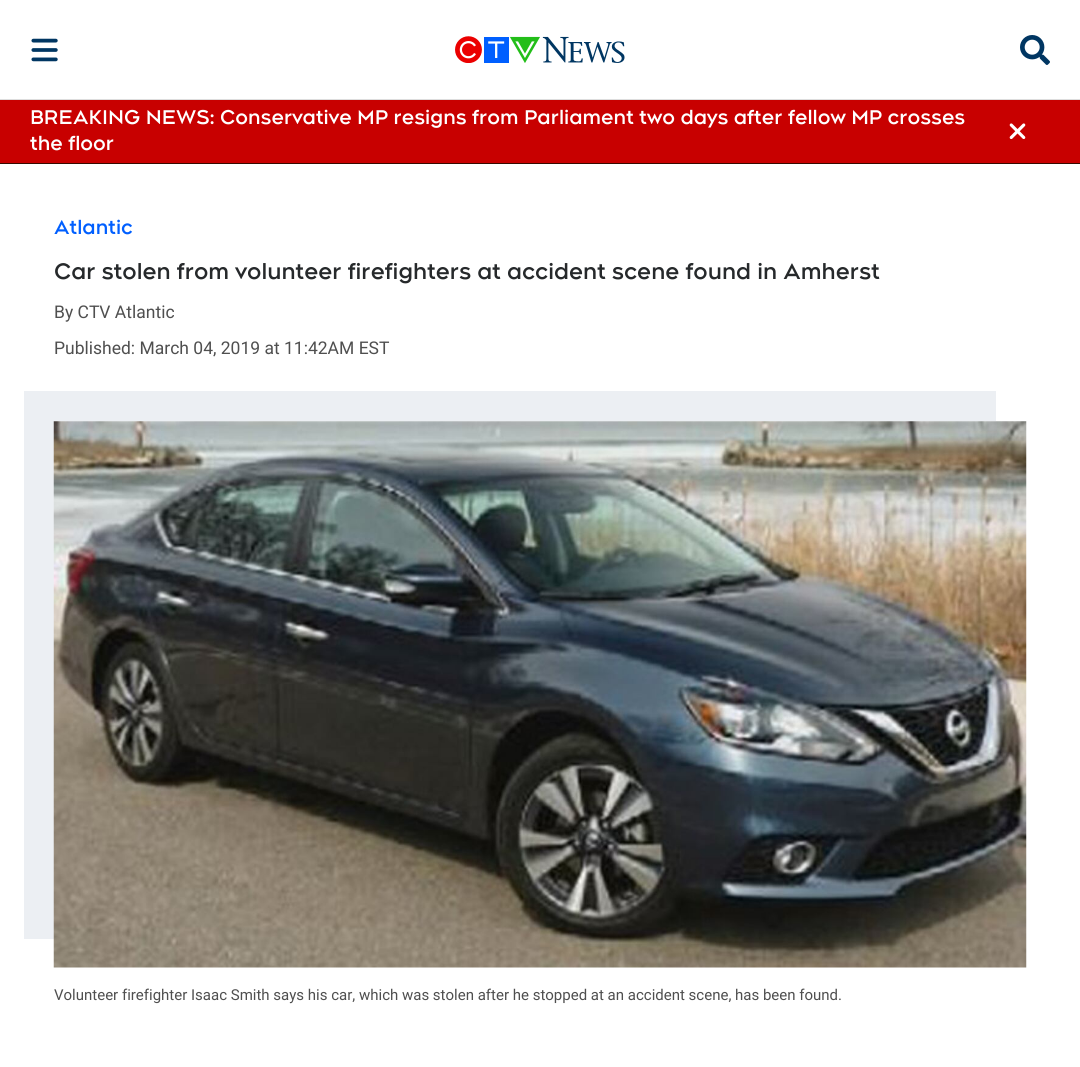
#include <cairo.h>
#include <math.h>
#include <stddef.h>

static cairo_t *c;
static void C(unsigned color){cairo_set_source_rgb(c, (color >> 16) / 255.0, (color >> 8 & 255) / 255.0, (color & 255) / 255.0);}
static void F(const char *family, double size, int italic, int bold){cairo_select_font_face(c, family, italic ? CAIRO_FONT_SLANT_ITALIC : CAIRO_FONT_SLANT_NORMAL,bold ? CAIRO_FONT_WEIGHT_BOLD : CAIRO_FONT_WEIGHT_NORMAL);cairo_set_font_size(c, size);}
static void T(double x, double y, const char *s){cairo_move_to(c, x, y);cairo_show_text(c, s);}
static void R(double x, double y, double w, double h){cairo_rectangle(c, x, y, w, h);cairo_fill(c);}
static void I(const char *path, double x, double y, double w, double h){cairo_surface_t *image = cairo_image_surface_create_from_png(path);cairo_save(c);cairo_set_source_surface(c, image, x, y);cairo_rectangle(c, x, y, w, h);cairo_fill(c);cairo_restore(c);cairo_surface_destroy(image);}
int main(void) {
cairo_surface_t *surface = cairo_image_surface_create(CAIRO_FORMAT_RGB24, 1080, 1067);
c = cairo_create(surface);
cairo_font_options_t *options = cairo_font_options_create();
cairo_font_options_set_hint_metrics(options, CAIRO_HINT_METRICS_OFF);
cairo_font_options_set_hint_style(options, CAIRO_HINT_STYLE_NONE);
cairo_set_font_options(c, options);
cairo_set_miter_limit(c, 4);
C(0xffffff);
cairo_paint(c);
C(0xdddddd);
R(0,99,1080,1);
I("1.png",31,38,27,24);
I("2.png",455,36,170,27);
I("3.png",1020,35,30,30);
C(0xc80000);
R(0,100,1080,63);
C(0x370a00);
R(0,163,1080,1);
F("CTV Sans",20,0,1);
C(0xffffff);
T(30,124,"BREAKING NEWS: Conservative MP resigns from Parliament two days after fellow MP crosses");
T(30,150,"the floor");
I("4.png",1009,123,17,16);
C(0x005fff);
T(54,234,"Atlantic");
F("CTV Sans",22.5,0,1);
C(0x26292b);
T(54,279,"Car stolen from volunteer firefighters at accident scene found in Amherst");
F("Roboto",17.5,0,0);
C(0x4f4f4f);
T(54,318,"By CTV Atlantic");
T(54,354,"Published: March 04, 2019 at 11:42AM EST");
C(0xeceff3);
cairo_new_path(c);
cairo_move_to(c,24,391);
cairo_line_to(c,24,939);
cairo_line_to(c,54,939);
cairo_line_to(c,54,421);
cairo_line_to(c,996,421);
cairo_line_to(c,996,391);
cairo_close_path(c);
cairo_fill(c);
I("5.png",53,421,974,547);
F("Roboto",15,0,0);
C(0x4f4f4f);
T(54,1000,"Volunteer firefighter Isaac Smith says his car, which was stolen after he stopped at an accident scene, has been found.");
cairo_surface_write_to_png(surface, "o.png");
cairo_font_options_destroy(options);
cairo_destroy(c);
cairo_surface_destroy(surface);
return 0;
}
